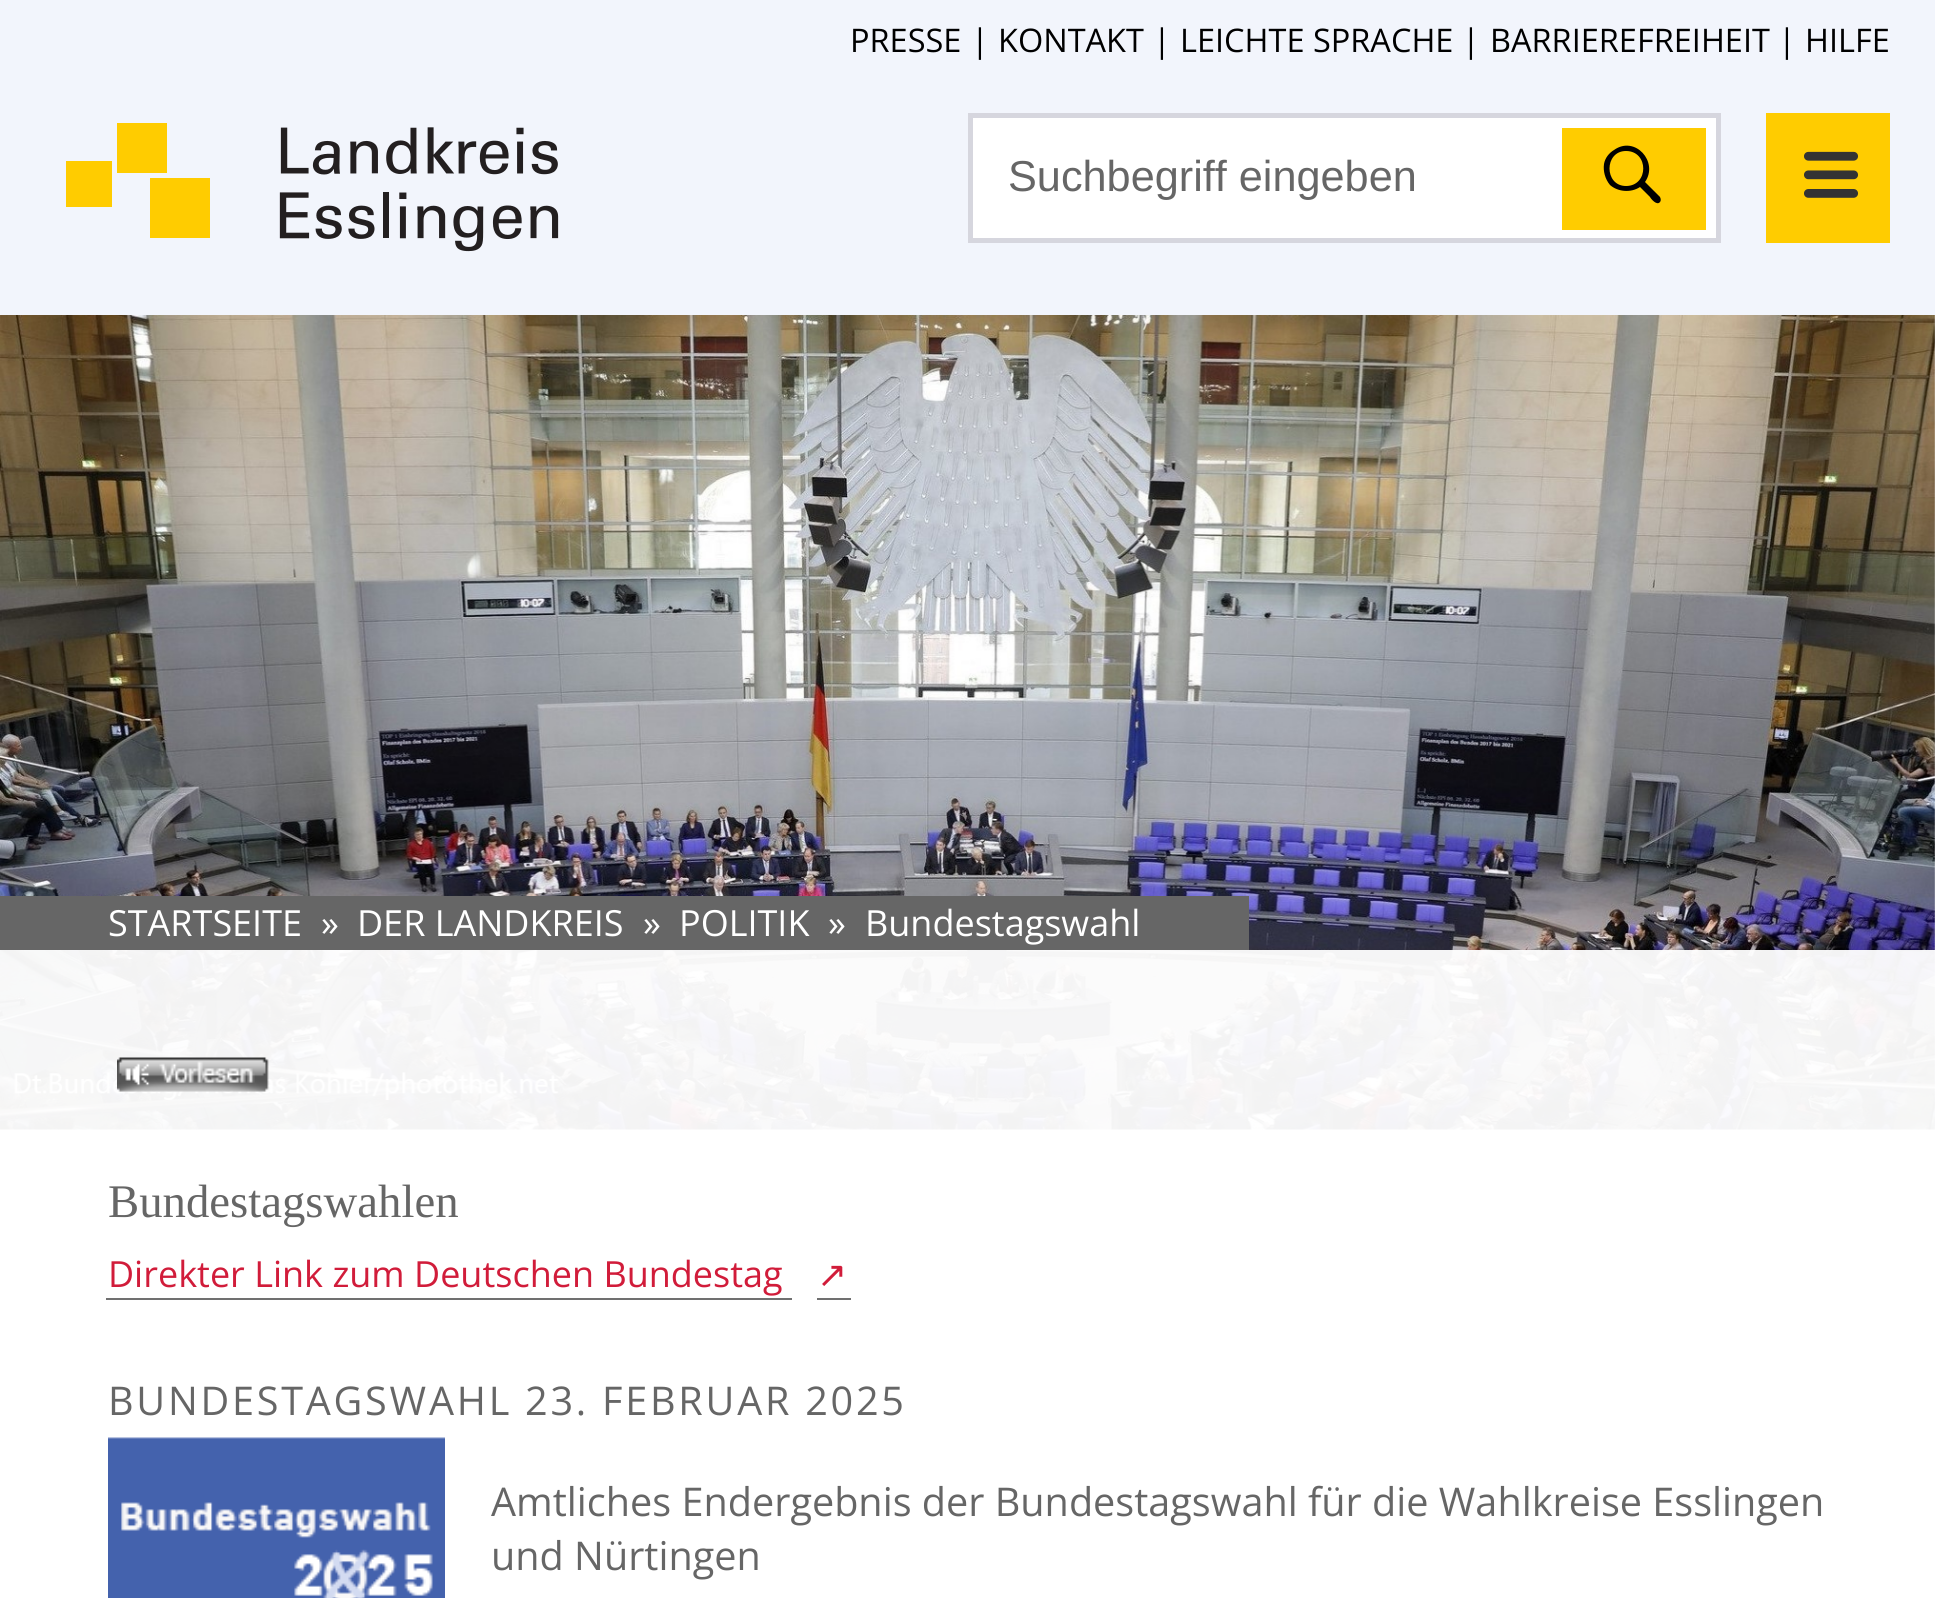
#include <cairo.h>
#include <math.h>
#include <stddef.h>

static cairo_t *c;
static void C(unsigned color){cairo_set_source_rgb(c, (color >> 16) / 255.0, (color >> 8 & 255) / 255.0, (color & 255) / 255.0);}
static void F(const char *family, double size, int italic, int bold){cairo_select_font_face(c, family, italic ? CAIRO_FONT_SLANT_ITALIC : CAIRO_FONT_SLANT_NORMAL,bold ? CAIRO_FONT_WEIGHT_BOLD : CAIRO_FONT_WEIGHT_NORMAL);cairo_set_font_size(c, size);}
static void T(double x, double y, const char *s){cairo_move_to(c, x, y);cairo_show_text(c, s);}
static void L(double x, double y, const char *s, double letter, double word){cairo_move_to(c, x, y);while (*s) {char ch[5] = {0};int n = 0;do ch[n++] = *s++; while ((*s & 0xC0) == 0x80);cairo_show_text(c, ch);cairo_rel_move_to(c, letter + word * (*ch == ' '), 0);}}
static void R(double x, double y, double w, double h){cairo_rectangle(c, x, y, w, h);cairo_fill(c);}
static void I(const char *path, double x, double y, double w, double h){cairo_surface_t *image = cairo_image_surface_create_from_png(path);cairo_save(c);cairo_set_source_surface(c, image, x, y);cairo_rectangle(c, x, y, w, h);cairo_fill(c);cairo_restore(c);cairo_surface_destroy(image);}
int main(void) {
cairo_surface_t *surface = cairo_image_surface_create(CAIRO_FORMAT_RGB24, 1935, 1598);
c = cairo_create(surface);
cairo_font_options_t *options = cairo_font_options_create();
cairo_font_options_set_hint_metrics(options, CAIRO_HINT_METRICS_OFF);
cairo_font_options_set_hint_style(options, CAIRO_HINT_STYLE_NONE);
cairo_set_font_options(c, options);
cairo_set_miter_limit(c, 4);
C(0xffffff);
cairo_paint(c);
C(0xf2f5fc);
R(0,0,1935,315);
F("Open Sans",32.5,0,0);
C(0x000000);
T(850,52,"PRESSE");
T(971,52,"|");
T(998,52,"KONTAKT");
T(1153,52,"|");
T(1180,52,"LEICHTE SPRACHE");
T(1462,52,"|");
T(1490,52,"BARRIEREFREIHEIT");
T(1778,52,"|");
T(1805,52,"HILFE");
I("1.png",66,123,493,129);
C(0xffffff);
cairo_rectangle(c,970.5,115.5,748,125);
cairo_fill_preserve(c);
C(0xd6d6de);
cairo_set_line_width(c,5);
cairo_stroke(c);
F("Liberation Sans",43.25,0,0);
C(0x666666);
T(1008,191,"Suchbegriff eingeben");
C(0xffcc00);
R(1562,128,144,102);
C(0x000000);
cairo_set_fill_rule(c,CAIRO_FILL_RULE_EVEN_ODD);
cairo_new_path(c);
cairo_move_to(c,1640,187);
cairo_curve_to(c,1631,193,1618,192,1610,185);
cairo_curve_to(c,1605,179,1603,171,1604,164);
cairo_curve_to(c,1605,158,1609,153,1614,150);
cairo_curve_to(c,1635,135,1659,162,1645,182);
cairo_line_to(c,1660,197);
cairo_curve_to(c,1661,199,1661,201,1660,202);
cairo_curve_to(c,1657,206,1651,199,1650,197);
cairo_close_path(c);
cairo_move_to(c,1626,186);
cairo_curve_to(c,1649,186,1649,151,1626,151);
cairo_curve_to(c,1604,151,1604,186,1626,186);
cairo_close_path(c);
cairo_fill(c);
C(0xffcc00);
R(1766,113,124,130);
I("2.png",1804,151,55,47);
I("3.png",0,315,1935,815);
C(0x666666);
R(0,896,1249,54);
F("Open Sans",36,0,0);
C(0xffffff);
T(108,936,"STARTSEITE");
T(321,936,"»");
T(357,936,"DER LANDKREIS");
T(643,936,"»");
T(679,936,"POLITIK");
T(828,936,"»");
T(865,936,"Bundestagswahl");
cairo_set_source_rgba(c,1,1,1,0.95);
R(0,950,1935,180);
I("4.png",117,1057,152,35);
F("Liberation Serif",46.75,0,0);
C(0x666666);
T(108,1217,"Bundestagswahlen");
F("Open Sans",36,0,0);
C(0xd11c3a);
T(108,1287,"Direkter Link zum Deutschen Bundestag");
C(0x707070);
R(106,1298,686,2);
F("DejaVu Sans",36,0,0);
C(0xd11c3a);
T(817,1287,"↗");
C(0x707070);
R(817,1298,34,2);
F("Open Sans",39.6,0,0);
C(0x666666);
L(108,1415,"BUNDESTAGSWAHL 23. FEBRUAR 2025",2.75,0);
I("5.png",108,1437,337,161);
T(491,1516,"Amtliches Endergebnis der Bundestagswahl für die Wahlkreise Esslingen");
T(491,1570,"und Nürtingen");
cairo_surface_write_to_png(surface, "o.png");
cairo_font_options_destroy(options);
cairo_destroy(c);
cairo_surface_destroy(surface);
return 0;
}
